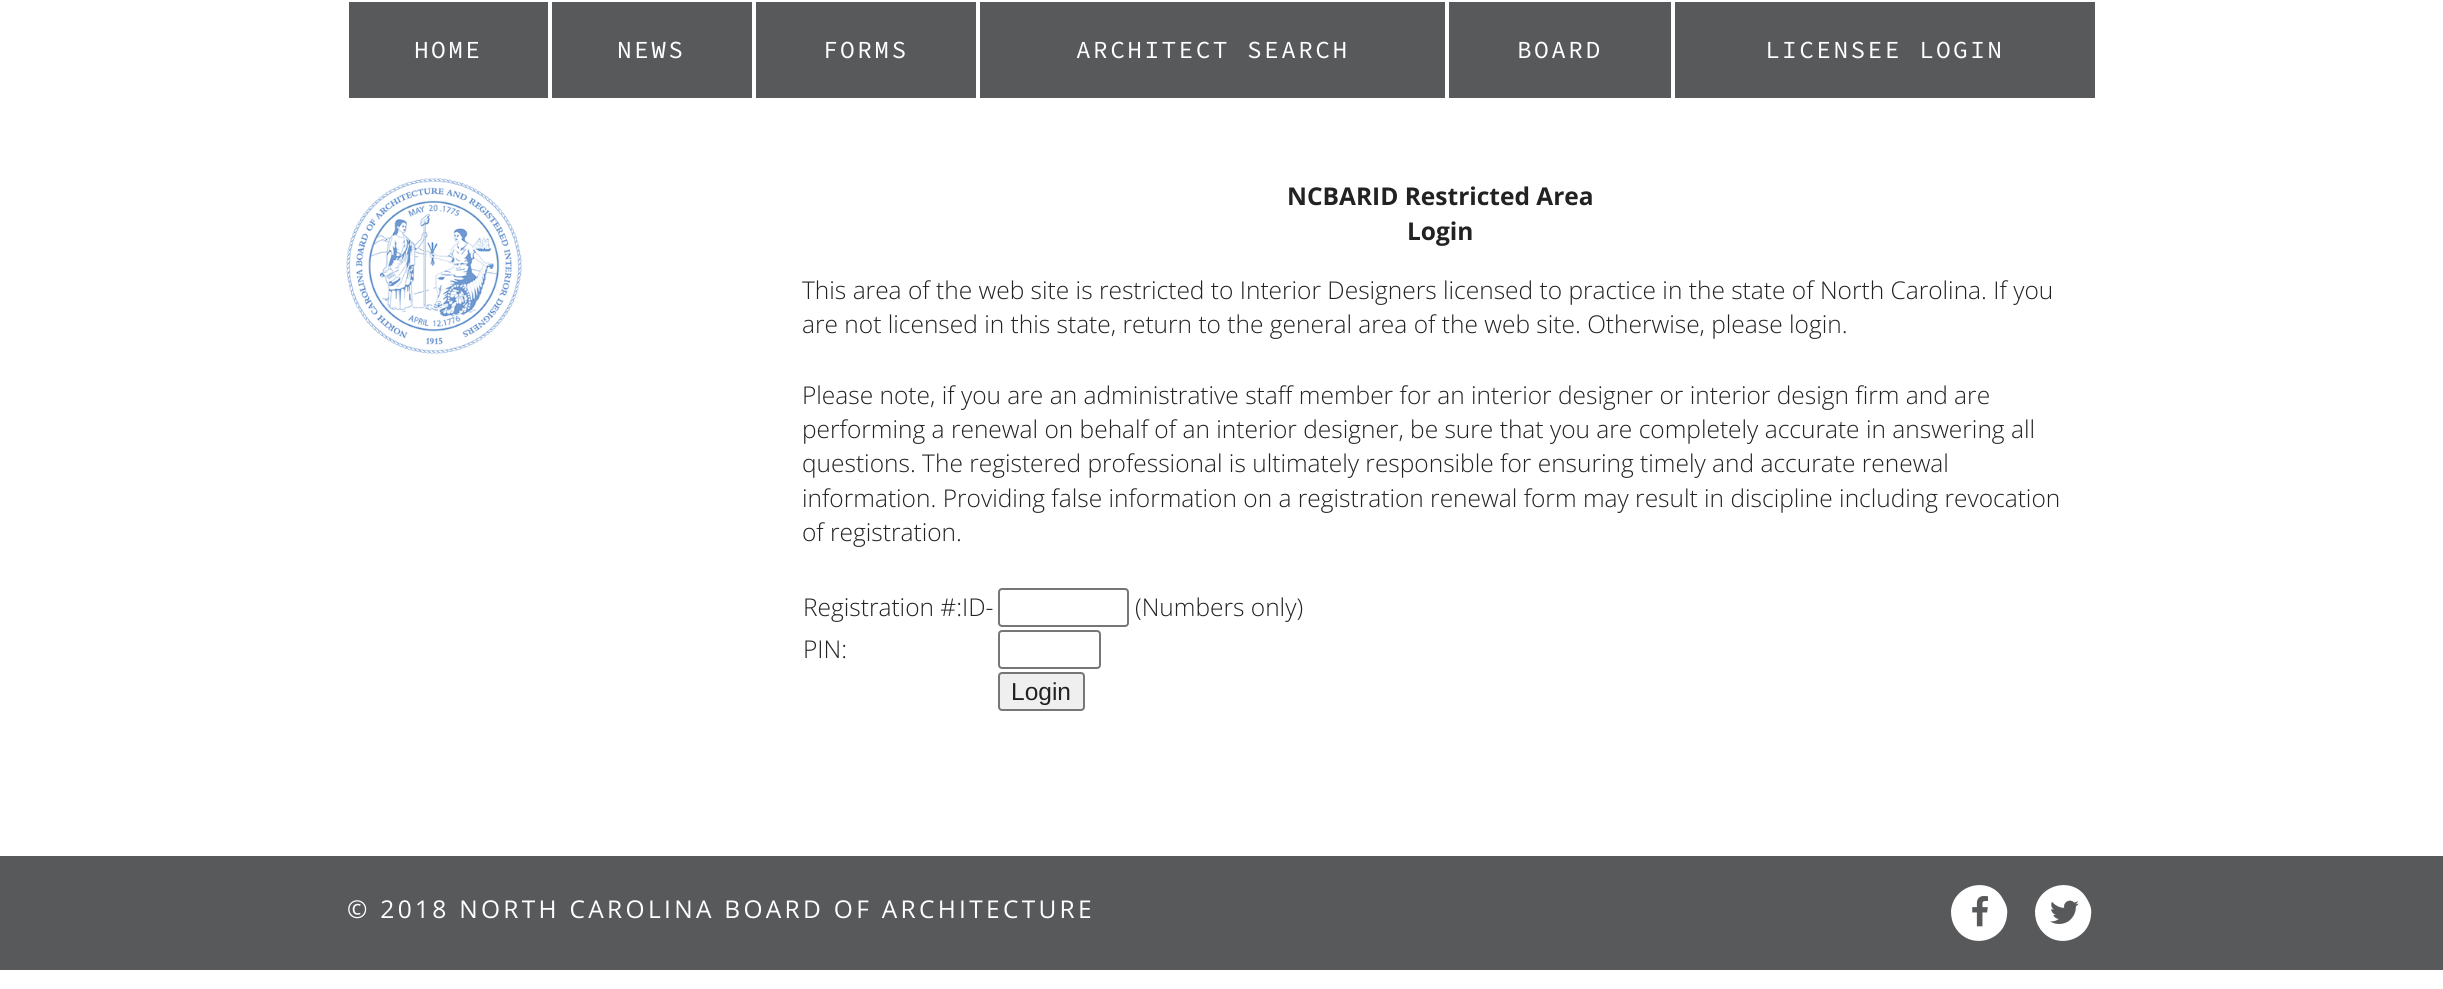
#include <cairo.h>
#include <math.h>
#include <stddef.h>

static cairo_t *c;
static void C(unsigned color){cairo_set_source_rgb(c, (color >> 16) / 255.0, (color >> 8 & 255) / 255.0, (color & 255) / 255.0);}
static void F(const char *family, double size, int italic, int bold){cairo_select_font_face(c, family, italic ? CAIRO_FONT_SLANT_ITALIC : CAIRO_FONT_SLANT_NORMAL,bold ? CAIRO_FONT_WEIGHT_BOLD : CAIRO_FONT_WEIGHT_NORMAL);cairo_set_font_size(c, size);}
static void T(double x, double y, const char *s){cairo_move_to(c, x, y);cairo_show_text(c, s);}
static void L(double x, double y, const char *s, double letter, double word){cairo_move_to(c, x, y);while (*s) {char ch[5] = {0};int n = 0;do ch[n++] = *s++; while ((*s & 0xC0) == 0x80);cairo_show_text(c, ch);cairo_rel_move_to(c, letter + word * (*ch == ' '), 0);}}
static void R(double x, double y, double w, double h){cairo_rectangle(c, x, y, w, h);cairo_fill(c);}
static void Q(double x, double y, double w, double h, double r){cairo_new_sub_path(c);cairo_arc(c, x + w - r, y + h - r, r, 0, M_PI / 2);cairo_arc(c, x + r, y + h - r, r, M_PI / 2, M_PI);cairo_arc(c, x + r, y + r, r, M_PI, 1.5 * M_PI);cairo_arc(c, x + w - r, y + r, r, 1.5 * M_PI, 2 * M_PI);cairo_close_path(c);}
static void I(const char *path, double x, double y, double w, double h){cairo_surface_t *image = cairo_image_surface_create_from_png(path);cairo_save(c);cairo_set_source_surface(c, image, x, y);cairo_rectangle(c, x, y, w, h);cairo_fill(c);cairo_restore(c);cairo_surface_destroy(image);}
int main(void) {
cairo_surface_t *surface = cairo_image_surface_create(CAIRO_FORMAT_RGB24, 2443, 989);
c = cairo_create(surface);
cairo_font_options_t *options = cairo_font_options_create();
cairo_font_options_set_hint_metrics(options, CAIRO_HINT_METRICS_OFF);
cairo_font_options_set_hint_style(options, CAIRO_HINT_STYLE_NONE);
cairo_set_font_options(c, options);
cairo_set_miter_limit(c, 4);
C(0xffffff);
cairo_paint(c);
C(0x58595b);
R(349,2,199,96);
F("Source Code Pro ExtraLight",24.5,0,0);
C(0xffffff);
L(414,58,"HOME",2.4,0);
C(0x58595b);
R(552,2,200,96);
C(0xffffff);
L(617,58,"NEWS",2.4,0);
C(0x58595b);
R(756,2,220,96);
C(0xffffff);
L(823,58,"FORMS",2.4,0);
C(0x58595b);
R(980,2,465,96);
C(0xffffff);
L(1076,58,"ARCHITECT SEARCH",2.4,0);
C(0x58595b);
R(1449,2,222,96);
C(0xffffff);
L(1517,58,"BOARD",2.4,0);
C(0x58595b);
R(1675,2,420,96);
C(0xffffff);
L(1765,58,"LICENSEE LOGIN",2.4,0);
I("1.png",346,178,176,176);
F("Open Sans",24.5,0,1);
C(0x222222);
T(1287,205,"NCBARID Restricted Area");
T(1407,240,"Login");
F("Open Sans Light",24.5,0,0);
T(802,299,"This area of the web site is restricted to Interior Designers licensed to practice in the state of North Carolina. If you");
T(802,333,"are not licensed in this state, return to the general area of the web site. Otherwise, please login.");
T(802,404,"Please note, if you are an administrative staff member for an interior designer or interior design firm and are");
T(802,438,"performing a renewal on behalf of an interior designer, be sure that you are completely accurate in answering all");
T(802,472,"questions. The registered professional is ultimately responsible for ensuring timely and accurate renewal");
T(802,507,"information. Providing false information on a registration renewal form may result in discipline including revocation");
T(802,541,"of registration.");
T(803,616,"Registration #:ID-");
Q(999,589,129,37,3);
C(0x767676);
cairo_stroke(c);
C(0x222222);
T(1135,616,"(Numbers only)");
T(803,658,"PIN:");
Q(999,631,101,37,3);
C(0x767676);
cairo_stroke(c);
C(0xefefef);
Q(999,673,85,37,3);
cairo_fill_preserve(c);
C(0x767676);
cairo_stroke(c);
F("Liberation Sans",24.5,0,0);
C(0x222222);
T(1011,700,"Login");
C(0x58595b);
R(0,856,2443,114);
F("Open Sans",24.5,0,0);
C(0xffffff);
L(347,918,"© 2018 NORTH CAROLINA BOARD OF ARCHITECTURE",3.3,0);
cairo_new_path(c);
cairo_move_to(c,2003,899);
cairo_curve_to(c,2006,904,2008,909,2007,915);
cairo_curve_to(c,2005,942,1969,951,1955,927);
cairo_curve_to(c,1952,922,1951,917,1951,911);
cairo_curve_to(c,1953,884,1990,875,2003,899);
cairo_close_path(c);
cairo_fill(c);
I("2.png",1972,896,16,31);
cairo_new_path(c);
cairo_move_to(c,2087,899);
cairo_curve_to(c,2090,904,2092,909,2091,915);
cairo_curve_to(c,2089,942,2053,951,2039,927);
cairo_curve_to(c,2036,922,2035,917,2035,911);
cairo_curve_to(c,2037,884,2074,875,2087,899);
cairo_close_path(c);
cairo_fill(c);
I("3.png",2050,900,29,24);
cairo_surface_write_to_png(surface, "o.png");
cairo_font_options_destroy(options);
cairo_destroy(c);
cairo_surface_destroy(surface);
return 0;
}
